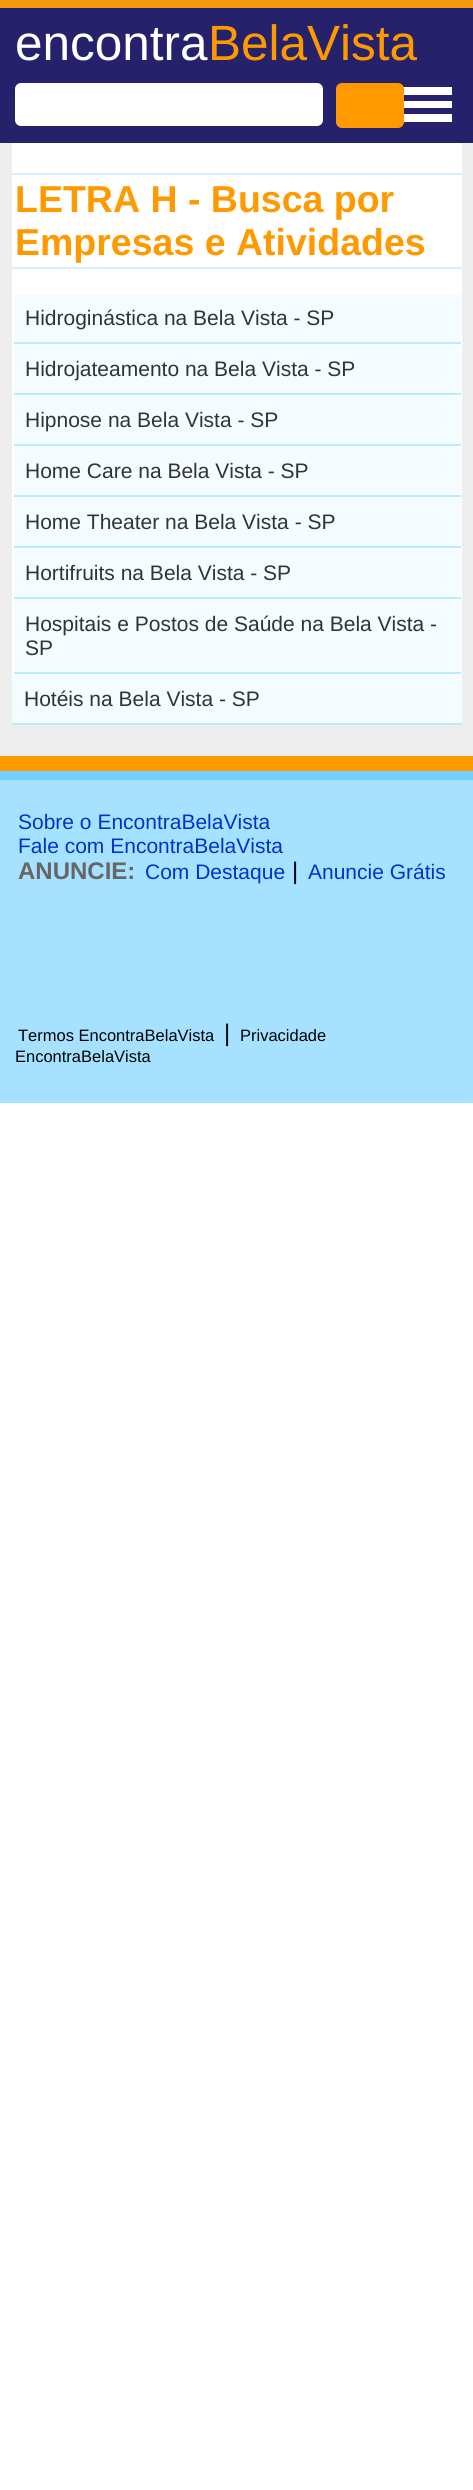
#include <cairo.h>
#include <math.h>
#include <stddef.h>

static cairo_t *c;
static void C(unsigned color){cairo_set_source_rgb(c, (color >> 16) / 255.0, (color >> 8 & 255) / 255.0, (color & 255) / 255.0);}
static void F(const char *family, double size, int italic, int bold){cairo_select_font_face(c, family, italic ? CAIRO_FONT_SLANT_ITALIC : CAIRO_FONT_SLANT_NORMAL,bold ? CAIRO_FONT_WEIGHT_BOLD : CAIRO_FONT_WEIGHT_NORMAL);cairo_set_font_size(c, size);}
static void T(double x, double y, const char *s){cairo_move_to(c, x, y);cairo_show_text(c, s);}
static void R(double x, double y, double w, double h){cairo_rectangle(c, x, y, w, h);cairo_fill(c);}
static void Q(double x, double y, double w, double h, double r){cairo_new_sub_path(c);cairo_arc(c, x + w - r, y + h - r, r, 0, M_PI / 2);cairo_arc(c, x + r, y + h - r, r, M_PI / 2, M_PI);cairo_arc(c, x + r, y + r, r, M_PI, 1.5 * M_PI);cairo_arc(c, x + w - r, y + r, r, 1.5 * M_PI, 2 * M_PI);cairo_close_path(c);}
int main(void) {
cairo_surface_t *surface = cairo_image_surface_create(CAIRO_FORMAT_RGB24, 473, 2490);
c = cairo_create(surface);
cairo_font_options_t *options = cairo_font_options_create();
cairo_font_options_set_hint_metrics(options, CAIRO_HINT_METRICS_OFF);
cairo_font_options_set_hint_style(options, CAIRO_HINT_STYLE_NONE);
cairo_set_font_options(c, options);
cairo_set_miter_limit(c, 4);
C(0xffffff);
cairo_paint(c);
C(0xeeeeee);
R(0,143,473,613);
C(0x25216b);
R(0,8,473,135);
C(0xf6990d);
R(0,0,473,8);
F("Liberation Sans",49.5,0,0);
C(0xffffff);
T(15,60,"encontra");
C(0xff9900);
T(208,60,"BelaVista");
C(0xffffff);
Q(15,83,308,43,6);
cairo_fill(c);
R(399,87,53,8);
R(399,101,53,7);
R(399,114,53,8);
C(0xff9900);
Q(336,83,68,45,6);
cairo_fill(c);
C(0xffffff);
R(12,143,450,532);
C(0xd2f0ff);
R(12,173,450,2);
R(12,267,450,2);
F("Liberation Sans",37.5,0,1);
C(0xff9900);
T(15,212,"LETRA H - Busca por");
T(15,255,"Empresas e Atividades");
C(0xf4fcff);
R(14,294,447,48);
C(0xb9ecff);
R(14,342,447,2);
F("Liberation Sans",21,0,0);
C(0x333333);
T(25,325,"Hidroginástica na Bela Vista - SP");
C(0xf4fcff);
R(14,345,447,48);
C(0xb9ecff);
R(14,393,447,2);
C(0x333333);
T(25,376,"Hidrojateamento na Bela Vista - SP");
C(0xf4fcff);
R(14,396,447,48);
C(0xb9ecff);
R(14,444,447,2);
C(0x333333);
T(25,427,"Hipnose na Bela Vista - SP");
C(0xf4fcff);
R(14,447,447,48);
C(0xb9ecff);
R(14,495,447,2);
C(0x333333);
T(25,478,"Home Care na Bela Vista - SP");
C(0xf4fcff);
R(14,498,447,48);
C(0xb9ecff);
R(14,546,447,2);
C(0x333333);
T(25,529,"Home Theater na Bela Vista - SP");
C(0xf4fcff);
R(14,549,447,48);
C(0xb9ecff);
R(14,597,447,2);
C(0x333333);
T(25,580,"Hortifruits na Bela Vista - SP");
C(0xf4fcff);
R(14,600,447,72);
C(0xb9ecff);
R(14,672,447,2);
C(0x333333);
T(25,631,"Hospitais e Postos de Saúde na Bela Vista -");
T(25,655,"SP");
C(0xf4fcff);
R(12,675,450,48);
C(0xb9ecff);
R(12,723,450,2);
C(0x333333);
T(24,706,"Hotéis na Bela Vista - SP");
C(0xff9900);
R(0,756,473,15);
C(0x71d0ff);
R(0,771,473,9);
C(0xa6e2ff);
R(0,780,473,323);
C(0x0033cc);
T(18,829,"Sobre o EncontraBelaVista");
T(18,853,"Fale com EncontraBelaVista");
F("Liberation Sans",24,0,1);
C(0x666666);
T(18,879,"ANUNCIE:");
F("Liberation Sans",21,0,0);
C(0x0033cc);
T(145,879,"Com Destaque");
F("Liberation Sans",24,0,0);
C(0x000000);
T(292,879,"|");
F("Liberation Sans",21,0,0);
C(0x0033cc);
T(308,879,"Anuncie Grátis");
F("Liberation Sans",16.5,0,0);
C(0x000000);
T(18,1041,"Termos EncontraBelaVista");
F("Liberation Sans",24,0,0);
T(224,1041,"|");
F("Liberation Sans",16.5,0,0);
T(240,1041,"Privacidade");
T(15,1062,"EncontraBelaVista");
cairo_surface_write_to_png(surface, "o.png");
cairo_font_options_destroy(options);
cairo_destroy(c);
cairo_surface_destroy(surface);
return 0;
}
